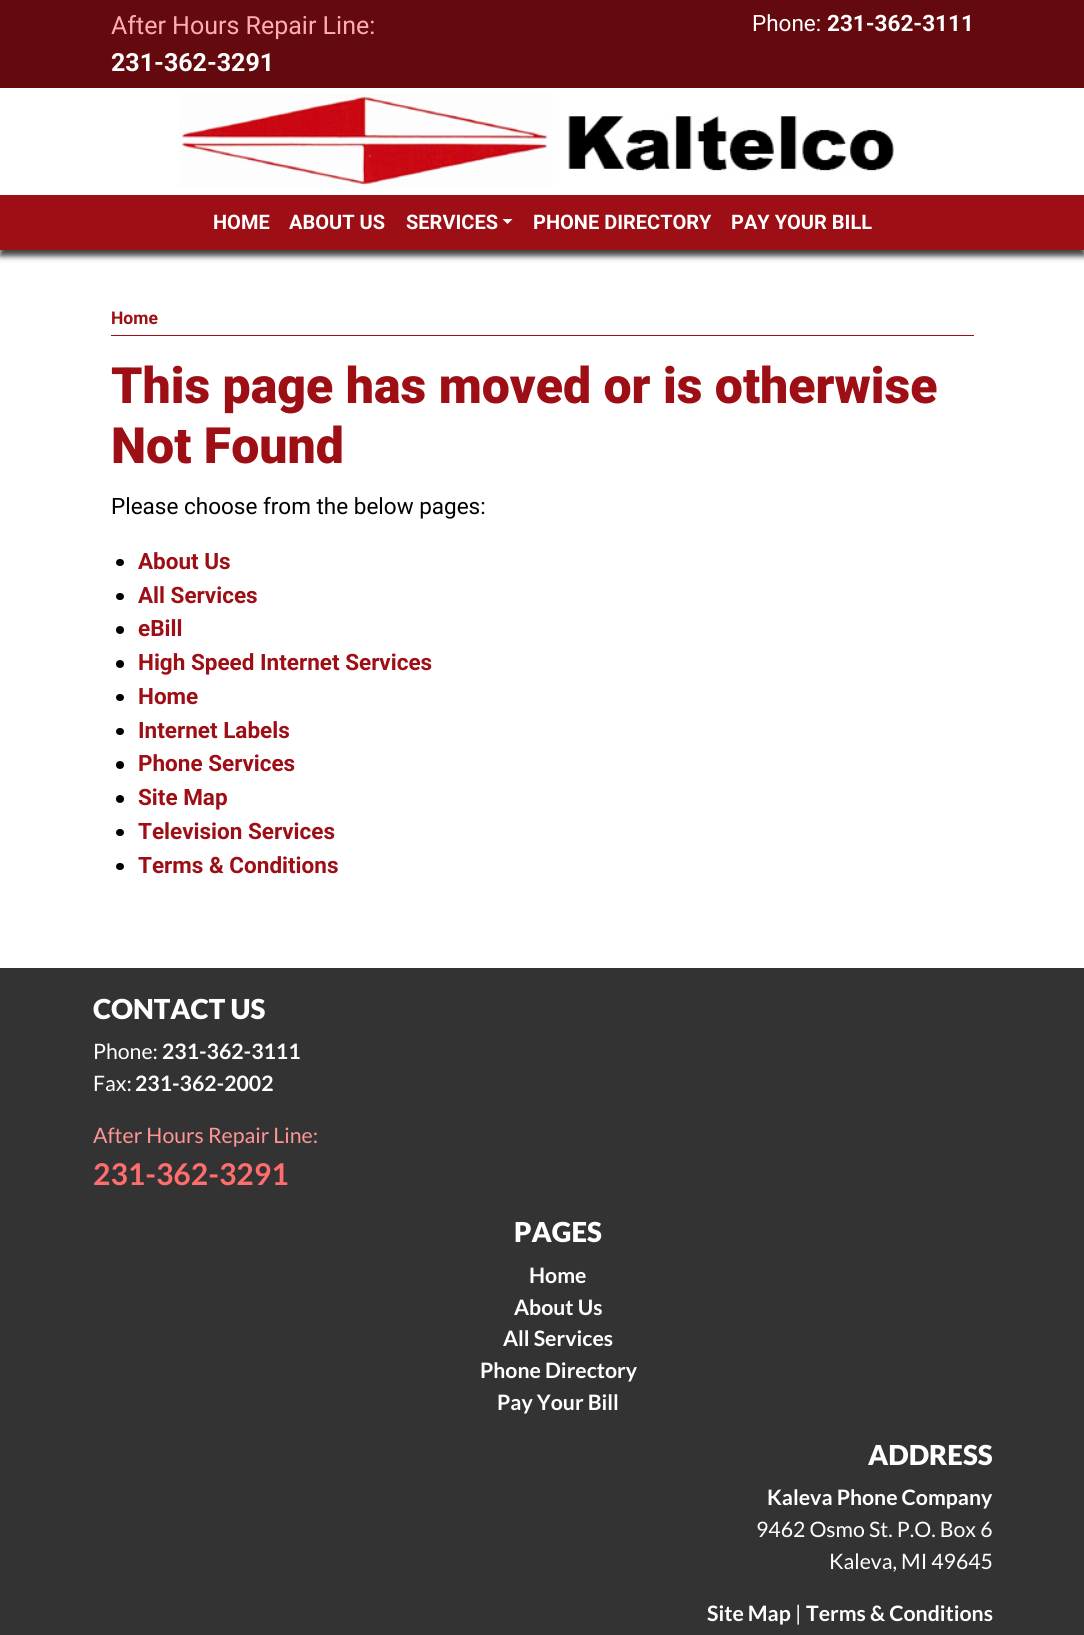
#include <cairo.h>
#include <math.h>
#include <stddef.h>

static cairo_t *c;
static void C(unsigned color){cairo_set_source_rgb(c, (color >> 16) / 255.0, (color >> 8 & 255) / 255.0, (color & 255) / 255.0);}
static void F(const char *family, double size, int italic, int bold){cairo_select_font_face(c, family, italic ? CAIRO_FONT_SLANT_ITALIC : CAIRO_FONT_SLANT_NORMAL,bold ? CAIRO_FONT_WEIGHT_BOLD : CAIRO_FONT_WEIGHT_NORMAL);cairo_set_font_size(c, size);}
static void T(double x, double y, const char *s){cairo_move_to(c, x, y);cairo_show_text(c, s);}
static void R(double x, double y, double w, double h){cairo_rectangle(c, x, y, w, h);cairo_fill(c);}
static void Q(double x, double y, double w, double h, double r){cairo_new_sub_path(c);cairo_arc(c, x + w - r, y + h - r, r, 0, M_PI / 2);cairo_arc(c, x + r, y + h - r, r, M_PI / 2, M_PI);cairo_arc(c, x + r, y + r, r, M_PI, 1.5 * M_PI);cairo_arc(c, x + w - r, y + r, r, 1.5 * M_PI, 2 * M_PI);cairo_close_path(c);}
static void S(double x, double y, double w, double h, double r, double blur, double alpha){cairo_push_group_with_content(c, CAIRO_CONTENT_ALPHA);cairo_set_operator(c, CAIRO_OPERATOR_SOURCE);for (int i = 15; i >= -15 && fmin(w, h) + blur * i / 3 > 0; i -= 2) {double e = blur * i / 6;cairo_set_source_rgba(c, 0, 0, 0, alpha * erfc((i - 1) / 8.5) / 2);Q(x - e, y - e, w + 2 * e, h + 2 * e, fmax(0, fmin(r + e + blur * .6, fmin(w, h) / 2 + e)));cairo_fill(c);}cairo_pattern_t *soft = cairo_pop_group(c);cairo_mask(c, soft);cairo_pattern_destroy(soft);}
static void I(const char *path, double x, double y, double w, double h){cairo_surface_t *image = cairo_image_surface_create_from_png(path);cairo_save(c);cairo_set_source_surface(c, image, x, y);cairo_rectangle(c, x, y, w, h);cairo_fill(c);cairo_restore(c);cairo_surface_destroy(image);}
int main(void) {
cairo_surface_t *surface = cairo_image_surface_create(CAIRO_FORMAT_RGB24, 1084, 1635);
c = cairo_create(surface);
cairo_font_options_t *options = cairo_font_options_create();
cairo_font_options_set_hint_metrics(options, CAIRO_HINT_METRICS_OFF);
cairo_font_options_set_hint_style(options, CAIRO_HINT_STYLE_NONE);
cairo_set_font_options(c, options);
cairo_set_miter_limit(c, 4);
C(0xffffff);
cairo_paint(c);
C(0x64090e);
R(0,0,1084,88);
F("Roboto",25,0,0);
C(0xffaeb0);
T(111,34,"After Hours Repair Line:");
F("Roboto",25,0,1);
C(0xffffff);
T(111,71,"231-362-3291");
F("Roboto",22.5,0,0);
T(752,31,"Phone:");
F("Roboto",22.5,0,1);
T(827,31,"231-362-3111");
I("1.png",179,94,715,93);
C(0x000000);
S(0,201,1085,55,0,3,.75);
C(0x9d0e15);
R(0,195,1084,55);
F("Roboto",20,0,1);
C(0xffffff);
T(213,229,"HOME");
T(289,229,"ABOUT US");
T(406,229,"SERVICES");
cairo_new_path(c);
cairo_move_to(c,502.5,219);
cairo_line_to(c,512.5,219);
cairo_line_to(c,507.5,224);
cairo_close_path(c);
cairo_fill(c);
T(533,229,"PHONE DIRECTORY");
T(731,229,"PAY YOUR BILL");
C(0x9d0e15);
R(111,335,863,1);
F("Roboto",17.5,0,1);
T(111,324,"Home");
F("Roboto Black",50,0,0);
T(111,403,"This page has moved or is otherwise");
T(111,463,"Not Found");
F("Roboto",22.5,0,0);
C(0x000000);
T(111,514,"Please choose from the below pages:");
Q(116,559,8,7,3.5);
cairo_fill(c);
F("Roboto",22.5,0,1);
C(0x9d0e15);
T(138,569,"About Us");
C(0x000000);
Q(116,593,8,7,3.5);
cairo_fill(c);
C(0x9d0e15);
T(138,603,"All Services");
C(0x000000);
cairo_new_path(c);
cairo_arc(c,120,630,4,0,2 * M_PI);
cairo_fill(c);
C(0x9d0e15);
T(138,636,"eBill");
C(0x000000);
cairo_new_path(c);
cairo_arc(c,120,664,4,0,2 * M_PI);
cairo_fill(c);
C(0x9d0e15);
T(138,670,"High Speed Internet Services");
C(0x000000);
Q(116,694,8,7,3.5);
cairo_fill(c);
C(0x9d0e15);
T(138,704,"Home");
C(0x000000);
Q(116,728,8,7,3.5);
cairo_fill(c);
C(0x9d0e15);
T(138,738,"Internet Labels");
C(0x000000);
cairo_new_path(c);
cairo_arc(c,120,765,4,0,2 * M_PI);
cairo_fill(c);
C(0x9d0e15);
T(138,771,"Phone Services");
C(0x000000);
cairo_new_path(c);
cairo_arc(c,120,799,4,0,2 * M_PI);
cairo_fill(c);
C(0x9d0e15);
T(138,805,"Site Map");
C(0x000000);
Q(116,829,8,7,3.5);
cairo_fill(c);
C(0x9d0e15);
T(138,839,"Television Services");
C(0x000000);
Q(116,863,8,7,3.5);
cairo_fill(c);
C(0x9d0e15);
T(138,873,"Terms & Conditions");
C(0x333333);
R(0,968,1084,667);
F("Lato Black",27.5,0,0);
C(0xffffff);
T(93,1019,"CONTACT US");
F("Lato",21.25,0,0);
T(93,1059,"Phone:");
F("Lato",21.25,0,1);
T(162,1059,"231-362-3111");
F("Lato",21.25,0,0);
T(93,1091,"Fax:");
F("Lato",21.25,0,1);
T(135,1091,"231-362-2002");
F("Lato",21.25,0,0);
C(0xff9595);
T(93,1143,"After Hours Repair Line:");
F("Lato",30,0,1);
C(0xff6d6d);
T(93,1185,"231-362-3291");
F("Lato Black",27.5,0,0);
C(0xffffff);
T(514,1242,"PAGES");
F("Lato",21.25,0,1);
T(529,1283,"Home");
T(514,1315,"About Us");
T(503,1346,"All Services");
T(480,1378,"Phone Directory");
T(497,1410,"Pay Your Bill");
F("Lato Black",27.5,0,0);
T(868,1465,"ADDRESS");
F("Lato",21.25,0,1);
T(767,1505,"Kaleva Phone Company");
F("Lato",21.25,0,0);
T(756,1537,"9462 Osmo St. P.O. Box 6");
T(829,1569,"Kaleva, MI 49645");
F("Lato",21.25,0,1);
T(707,1621,"Site Map");
F("Lato",21.25,0,0);
T(795,1621,"|");
F("Lato",21.25,0,1);
T(806,1621,"Terms & Conditions");
cairo_surface_write_to_png(surface, "o.png");
cairo_font_options_destroy(options);
cairo_destroy(c);
cairo_surface_destroy(surface);
return 0;
}
